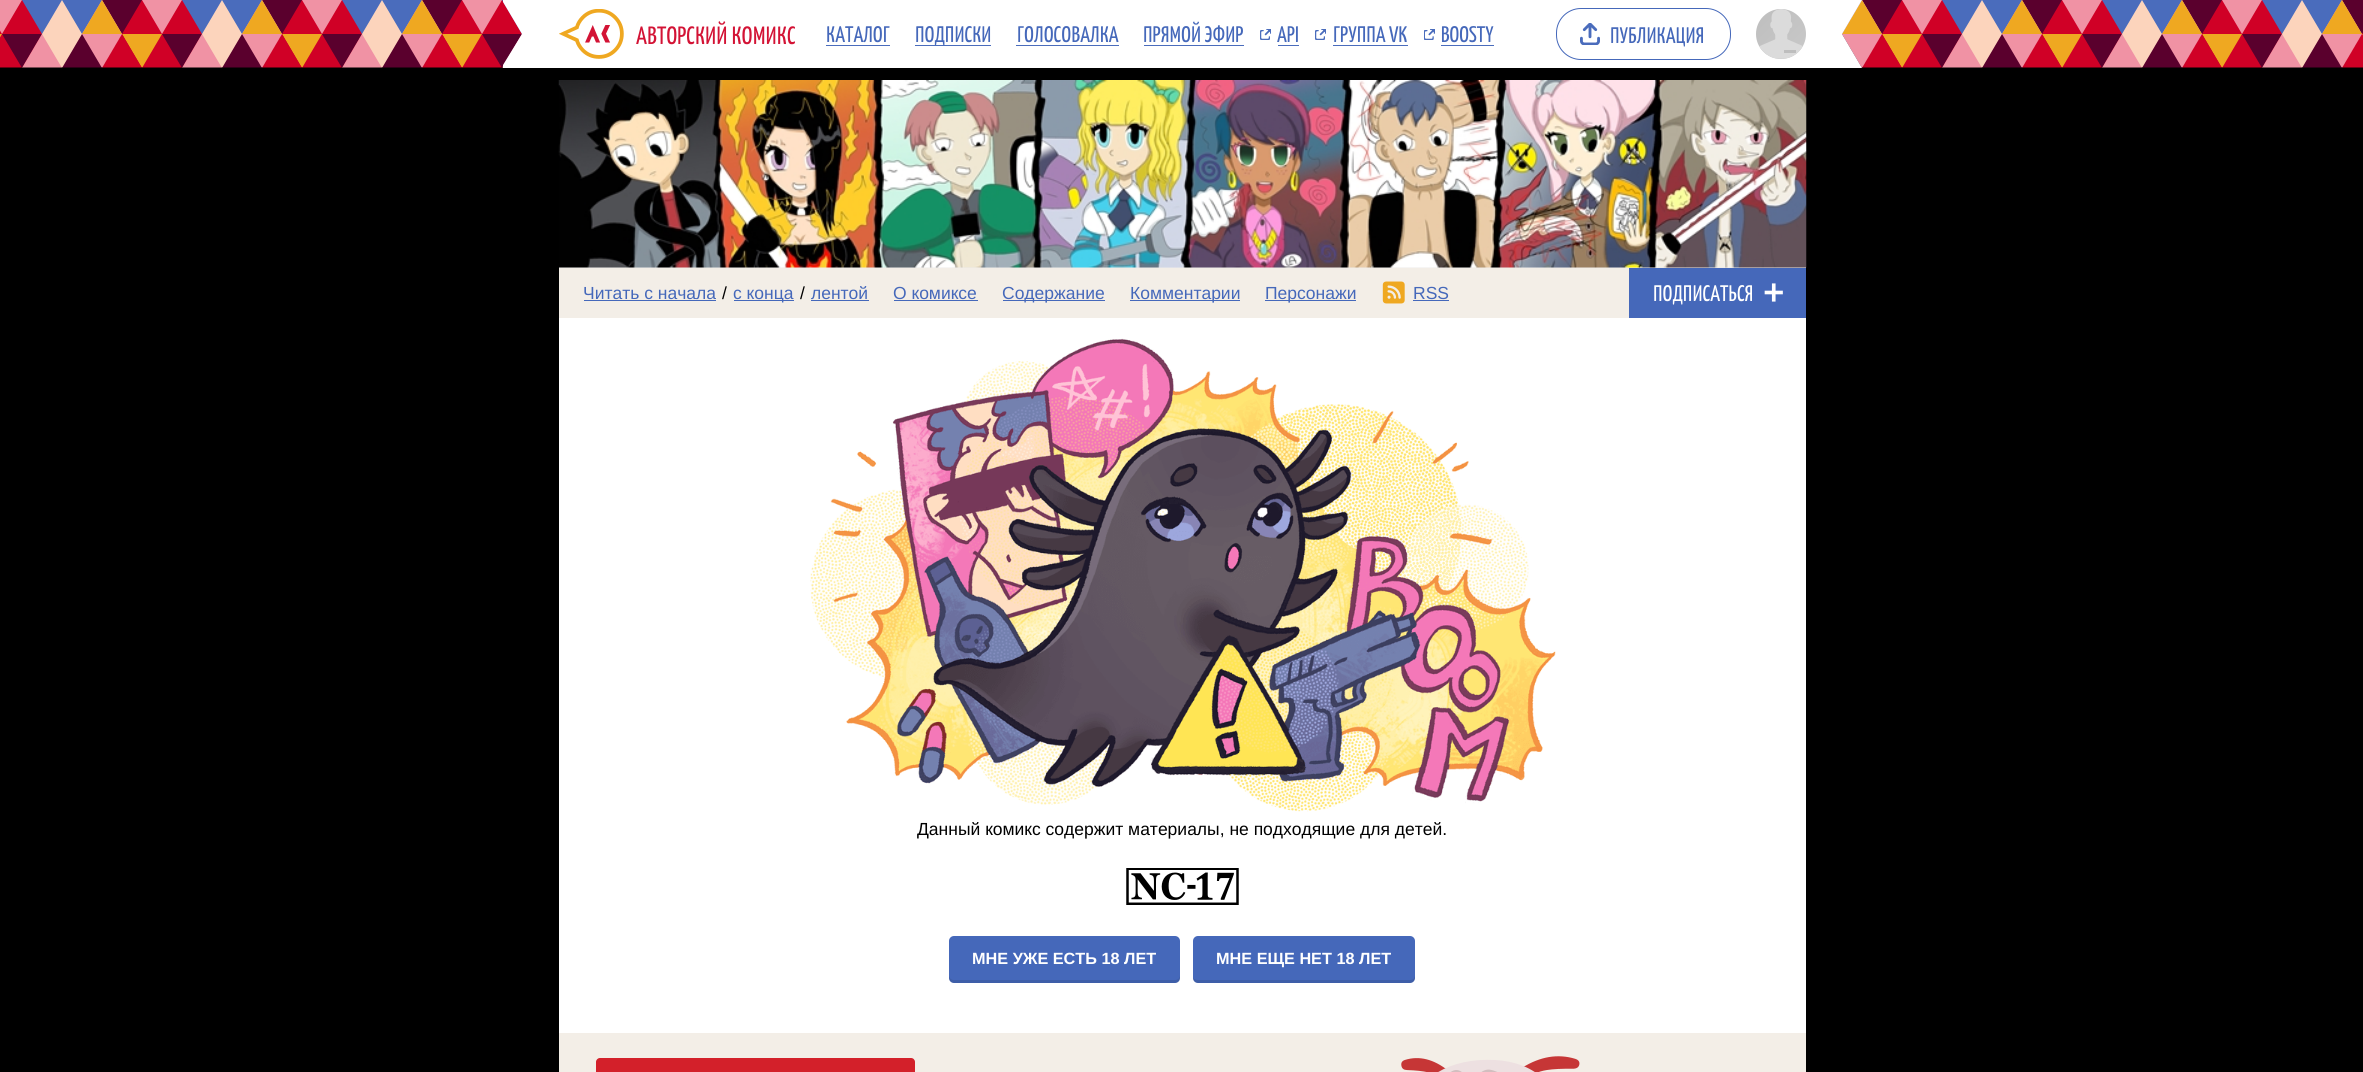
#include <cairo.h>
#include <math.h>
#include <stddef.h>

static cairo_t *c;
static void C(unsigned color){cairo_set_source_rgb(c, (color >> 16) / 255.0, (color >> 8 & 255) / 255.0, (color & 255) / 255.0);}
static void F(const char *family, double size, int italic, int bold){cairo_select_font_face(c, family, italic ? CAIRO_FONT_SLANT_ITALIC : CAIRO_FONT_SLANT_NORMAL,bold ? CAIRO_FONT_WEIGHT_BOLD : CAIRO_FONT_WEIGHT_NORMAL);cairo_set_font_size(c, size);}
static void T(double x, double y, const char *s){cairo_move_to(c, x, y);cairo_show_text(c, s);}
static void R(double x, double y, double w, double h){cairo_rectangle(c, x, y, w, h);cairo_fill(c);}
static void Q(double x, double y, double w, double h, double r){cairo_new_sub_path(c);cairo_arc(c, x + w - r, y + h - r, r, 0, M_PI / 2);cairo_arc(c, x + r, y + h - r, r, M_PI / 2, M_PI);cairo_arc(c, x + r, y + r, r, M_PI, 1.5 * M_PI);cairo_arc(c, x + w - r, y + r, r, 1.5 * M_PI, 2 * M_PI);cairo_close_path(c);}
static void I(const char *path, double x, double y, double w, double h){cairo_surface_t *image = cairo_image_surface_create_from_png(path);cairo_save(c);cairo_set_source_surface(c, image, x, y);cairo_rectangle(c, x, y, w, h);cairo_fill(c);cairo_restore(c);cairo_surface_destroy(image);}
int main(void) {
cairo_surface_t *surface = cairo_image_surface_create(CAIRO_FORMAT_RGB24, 2363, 1072);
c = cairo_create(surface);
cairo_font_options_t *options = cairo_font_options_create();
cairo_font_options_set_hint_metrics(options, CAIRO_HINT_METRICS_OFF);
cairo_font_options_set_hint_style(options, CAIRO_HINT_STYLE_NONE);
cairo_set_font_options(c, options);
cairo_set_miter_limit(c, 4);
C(0x000000);
cairo_paint(c);
I("1.png",0,0,2363,68);
C(0xffffff);
cairo_new_path(c);
cairo_move_to(c,503,0);
cairo_line_to(c,1862,0);
cairo_line_to(c,1842,34);
cairo_line_to(c,1862,68);
cairo_line_to(c,503,68);
cairo_line_to(c,503,65);
cairo_line_to(c,522,34);
cairo_line_to(c,503,2);
cairo_close_path(c);
cairo_fill(c);
I("2.png",559,9,65,50);
F("Yanone Kaffeesatz",25,0,0);
C(0xd31335);
T(636,44,"АВТОРСКИЙ КОМИКС");
F("Yanone Kaffeesatz",22.5,0,0);
C(0x4568ba);
T(826,42,"КАТАЛОГ");
C(0x4a6cbc);
R(826,45,64,1);
C(0x4568ba);
T(915,42,"ПОДПИСКИ");
C(0x4a6cbc);
R(915,45,76,1);
C(0x4568ba);
T(1017,42,"ГОЛОСОВАЛКА");
C(0x4a6cbc);
R(1016,45,103,1);
C(0x4568ba);
T(1143,42,"ПРЯМОЙ ЭФИР");
C(0x4a6cbc);
R(1144,45,100,1);
I("3.png",1260,29,11,11);
C(0x4568ba);
T(1277,42,"API");
C(0x4a6cbc);
R(1278,45,21,1);
I("3.png",1315,29,11,11);
C(0x4568ba);
T(1333,42,"ГРУППА VK");
C(0x4a6cbc);
R(1333,45,75,1);
I("4.png",1424,29,11,11);
C(0x4568ba);
T(1441,42,"BOOSTY");
C(0x4a6cbc);
R(1441,45,53,1);
I("5.png",1580,23,20,22);
Q(1556.5,8.5,174,51,24.5);
C(0x4568ba);
cairo_set_line_width(c,1);
cairo_stroke(c);
T(1610,43,"ПУБЛИКАЦИЯ");
I("6.png",1756,9,50,50);
C(0xffffff);
R(559,318,1247,715);
C(0xedebe9);
R(559,267,1247,1);
I("7.png",558,80,1249,188);
C(0xf3eee7);
R(559,268,1070,50);
F("Liberation Sans",17.5,0,0);
C(0x4568ba);
T(583,299,"Читать с начала");
R(584,300,132,1);
C(0x000000);
T(722,299,"/");
C(0x4568ba);
R(734,300,60,1);
T(733,299,"с конца");
C(0x000000);
T(800,299,"/");
C(0x4568ba);
T(811,299,"лентой");
R(811,300,58,1);
T(893,299,"О комиксе");
R(894,300,84,1);
R(1003,300,102,1);
T(1002,299,"Содержание");
R(1130,300,110,1);
T(1130,299,"Комментарии");
R(1265,300,91,1);
T(1265,299,"Персонажи");
I("8.png",1382,281,23,23);
T(1413,299,"RSS");
R(1413,300,36,1);
R(1629,268,177,50);
I("9.png",1764,283,19,19);
F("Yanone Kaffeesatz",22.5,0,0);
C(0xffffff);
T(1653,301,"ПОДПИСАТЬСЯ");
I("10.png",810,338,746,474);
F("Liberation Sans",17.5,0,0);
C(0x000000);
T(917,835,"Данный комикс содержит материалы, не подходящие для детей.");
I("11.png",1126,868,113,37);
C(0x4568ba);
Q(949,936,231,47,5);
cairo_fill(c);
cairo_set_source_rgba(c,0,0,0,0.1);
cairo_new_path(c);
cairo_move_to(c,949,975);
cairo_line_to(c,949,978);
cairo_curve_to(c,949,981,951,983,954,983);
cairo_line_to(c,1175,983);
cairo_curve_to(c,1178,983,1180,981,1180,978);
cairo_line_to(c,1180,975);
cairo_curve_to(c,1180,978,1178,980,1175,980);
cairo_line_to(c,954,980);
cairo_curve_to(c,951,980,949,978,949,975);
cairo_close_path(c);
cairo_fill(c);
F("Liberation Sans",16.25,0,1);
C(0xffffff);
T(972,964,"МНЕ УЖЕ ЕСТЬ 18 ЛЕТ");
C(0x4568ba);
Q(1193,936,222,47,5);
cairo_fill(c);
cairo_set_source_rgba(c,0,0,0,0.1);
cairo_new_path(c);
cairo_move_to(c,1193,978);
cairo_curve_to(c,1193,981,1195,983,1198,983);
cairo_line_to(c,1410,983);
cairo_curve_to(c,1413,983,1415,981,1415,978);
cairo_line_to(c,1415,975);
cairo_curve_to(c,1415,978,1413,980,1410,980);
cairo_line_to(c,1198,980);
cairo_curve_to(c,1196,980,1194,979,1193,978);
cairo_close_path(c);
cairo_fill(c);
C(0xffffff);
T(1216,964,"МНЕ ЕЩЕ НЕТ 18 ЛЕТ");
C(0xf3eee7);
R(559,1033,1247,39);
C(0xd3202a);
Q(596,1058,319,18,4);
cairo_fill(c);
I("12.png",1401,1056,179,16);
cairo_surface_write_to_png(surface, "o.png");
cairo_font_options_destroy(options);
cairo_destroy(c);
cairo_surface_destroy(surface);
return 0;
}
